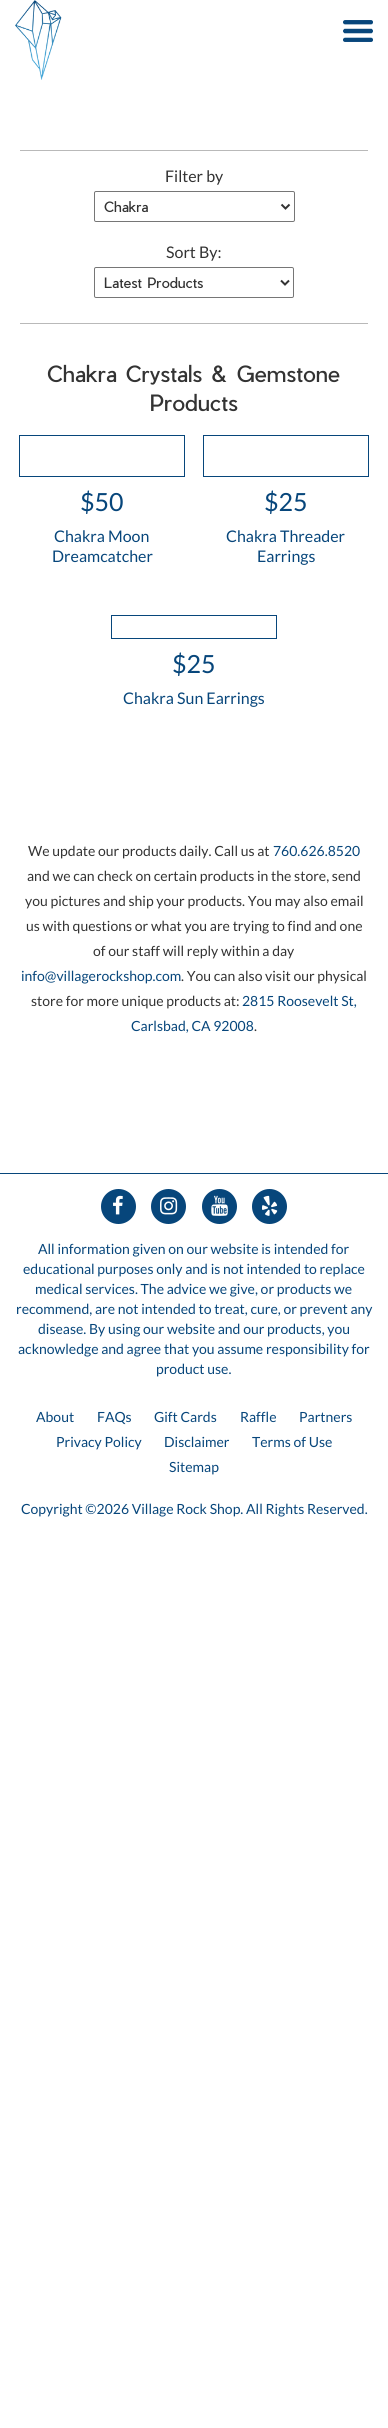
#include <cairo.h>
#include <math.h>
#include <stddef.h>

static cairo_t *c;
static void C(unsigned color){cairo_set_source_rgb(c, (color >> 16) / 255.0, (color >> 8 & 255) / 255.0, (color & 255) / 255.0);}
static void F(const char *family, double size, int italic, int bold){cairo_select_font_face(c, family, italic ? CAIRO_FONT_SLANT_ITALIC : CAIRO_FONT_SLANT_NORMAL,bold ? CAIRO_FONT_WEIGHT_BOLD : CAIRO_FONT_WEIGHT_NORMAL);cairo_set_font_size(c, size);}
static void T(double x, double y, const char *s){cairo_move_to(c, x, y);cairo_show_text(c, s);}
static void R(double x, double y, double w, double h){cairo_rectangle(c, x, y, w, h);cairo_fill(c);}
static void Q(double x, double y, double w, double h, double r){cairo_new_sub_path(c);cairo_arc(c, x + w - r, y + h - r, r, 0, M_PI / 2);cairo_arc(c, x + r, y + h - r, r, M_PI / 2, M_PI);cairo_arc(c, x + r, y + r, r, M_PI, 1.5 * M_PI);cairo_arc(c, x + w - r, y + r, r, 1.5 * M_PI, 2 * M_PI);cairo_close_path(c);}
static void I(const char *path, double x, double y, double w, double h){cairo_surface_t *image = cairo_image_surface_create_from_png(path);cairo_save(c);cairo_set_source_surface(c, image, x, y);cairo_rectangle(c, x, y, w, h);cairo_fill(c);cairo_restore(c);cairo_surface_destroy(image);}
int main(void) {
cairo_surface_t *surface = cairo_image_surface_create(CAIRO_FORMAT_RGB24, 388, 2428);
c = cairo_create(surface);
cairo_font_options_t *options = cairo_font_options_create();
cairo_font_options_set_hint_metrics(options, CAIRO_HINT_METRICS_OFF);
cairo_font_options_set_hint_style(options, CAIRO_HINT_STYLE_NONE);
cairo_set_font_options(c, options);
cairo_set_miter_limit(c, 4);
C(0xffffff);
cairo_paint(c);
I("1.png",15,0,47,80);
I("2.png",343,20,30,22);
C(0xb9b9b9);
R(20,150,348,1);
R(20,323,348,1);
F("Lato",16,0,0);
C(0x333333);
T(165,182,"Filter by");
Q(94.5,191.5,200,30,1.5);
C(0x767676);
cairo_set_line_width(c,1);
cairo_stroke(c);
cairo_new_path(c);
cairo_move_to(c,281.5,204.5);
cairo_line_to(c,285.5,208.5);
cairo_line_to(c,289.5,204.5);
C(0x333333);
cairo_set_line_width(c,2);
cairo_stroke(c);
F("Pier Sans",14,0,0);
T(104,212,"Chakra");
F("Lato",16,0,0);
T(166,258,"Sort By:");
Q(94.5,267.5,199,30,1.5);
C(0x767676);
cairo_set_line_width(c,1);
cairo_stroke(c);
cairo_new_path(c);
cairo_move_to(c,281,280.5);
cairo_line_to(c,285,284.5);
cairo_line_to(c,289,280.5);
C(0x333333);
cairo_set_line_width(c,2);
cairo_stroke(c);
F("Pier Sans",14,0,0);
T(104,288,"Latest Products");
F("Pier Sans",22,0,0);
T(47,382,"Chakra Crystals & Gemstone");
T(150,411,"Products");
cairo_rectangle(c,19.5,435.5,165,41);
C(0x07467b);
cairo_set_line_width(c,1);
cairo_stroke(c);
F("Lato",25,0,0);
T(80,511,"$50");
F("Lato",16,0,0);
T(54,542,"Chakra Moon");
T(52,562,"Dreamcatcher");
cairo_rectangle(c,203.5,435.5,165,41);
cairo_stroke(c);
F("Lato",25,0,0);
T(264,511,"$25");
F("Lato",16,0,0);
T(226,542,"Chakra Threader");
T(257,562,"Earrings");
cairo_rectangle(c,111.5,615.5,165,23);
cairo_stroke(c);
F("Lato",25,0,0);
T(172,673,"$25");
F("Lato",16,0,0);
T(123,704,"Chakra Sun Earrings");
F("Lato",14,0,0);
C(0x333333);
T(28,856,"We update our products daily. Call us at");
C(0x07467b);
T(273,856,"760.626.8520");
C(0x333333);
T(27,881,"and we can check on certain products in the store, send");
T(25,906,"you pictures and ship your products. You may also email");
T(26,931,"us with questions or what you are trying to find and one");
T(93,956,"of our staff will reply within a day");
C(0x07467b);
T(21,981,"info@villagerockshop.com");
C(0x333333);
T(181,981,". You can also visit our physical");
T(31,1006,"store for more unique products at:");
C(0x07467b);
T(242,1006,"2815 Roosevelt St,");
T(131,1031,"Carlsbad, CA 92008");
C(0x333333);
T(254,1031,".");
C(0x07467b);
R(0,1173,388,1);
cairo_new_path(c);
cairo_arc(c,118.5,1206.5,17.5,0,2 * M_PI);
cairo_fill(c);
I("3.png",113,1195,10,20);
cairo_arc(c,168.5,1206.5,17.5,0,2 * M_PI);
cairo_fill(c);
I("4.png",160,1197,18,18);
cairo_arc(c,219.5,1206.5,17.5,0,2 * M_PI);
cairo_fill(c);
I("5.png",211,1195,17,21);
cairo_arc(c,269.5,1206.5,17.5,0,2 * M_PI);
cairo_fill(c);
I("6.png",262,1195,16,21);
T(38,1254,"All information given on our website is intended for");
T(23,1274,"educational purposes only and is not intended to replace");
T(35,1294,"medical services. The advice we give, or products we");
T(16,1314,"recommend, are not intended to treat, cure, or prevent any");
T(38,1334,"disease. By using our website and our products, you");
T(18,1354,"acknowledge and agree that you assume responsibility for");
T(156,1374,"product use.");
T(36,1422,"About");
T(97,1422,"FAQs");
T(154,1422,"Gift Cards");
T(240,1422,"Raffle");
T(299,1422,"Partners");
T(56,1447,"Privacy Policy");
T(164,1447,"Disclaimer");
T(252,1447,"Terms of Use");
T(169,1472,"Sitemap");
T(21,1514,"Copyright ©2026 Village Rock Shop. All Rights Reserved.");
cairo_surface_write_to_png(surface, "o.png");
cairo_font_options_destroy(options);
cairo_destroy(c);
cairo_surface_destroy(surface);
return 0;
}
